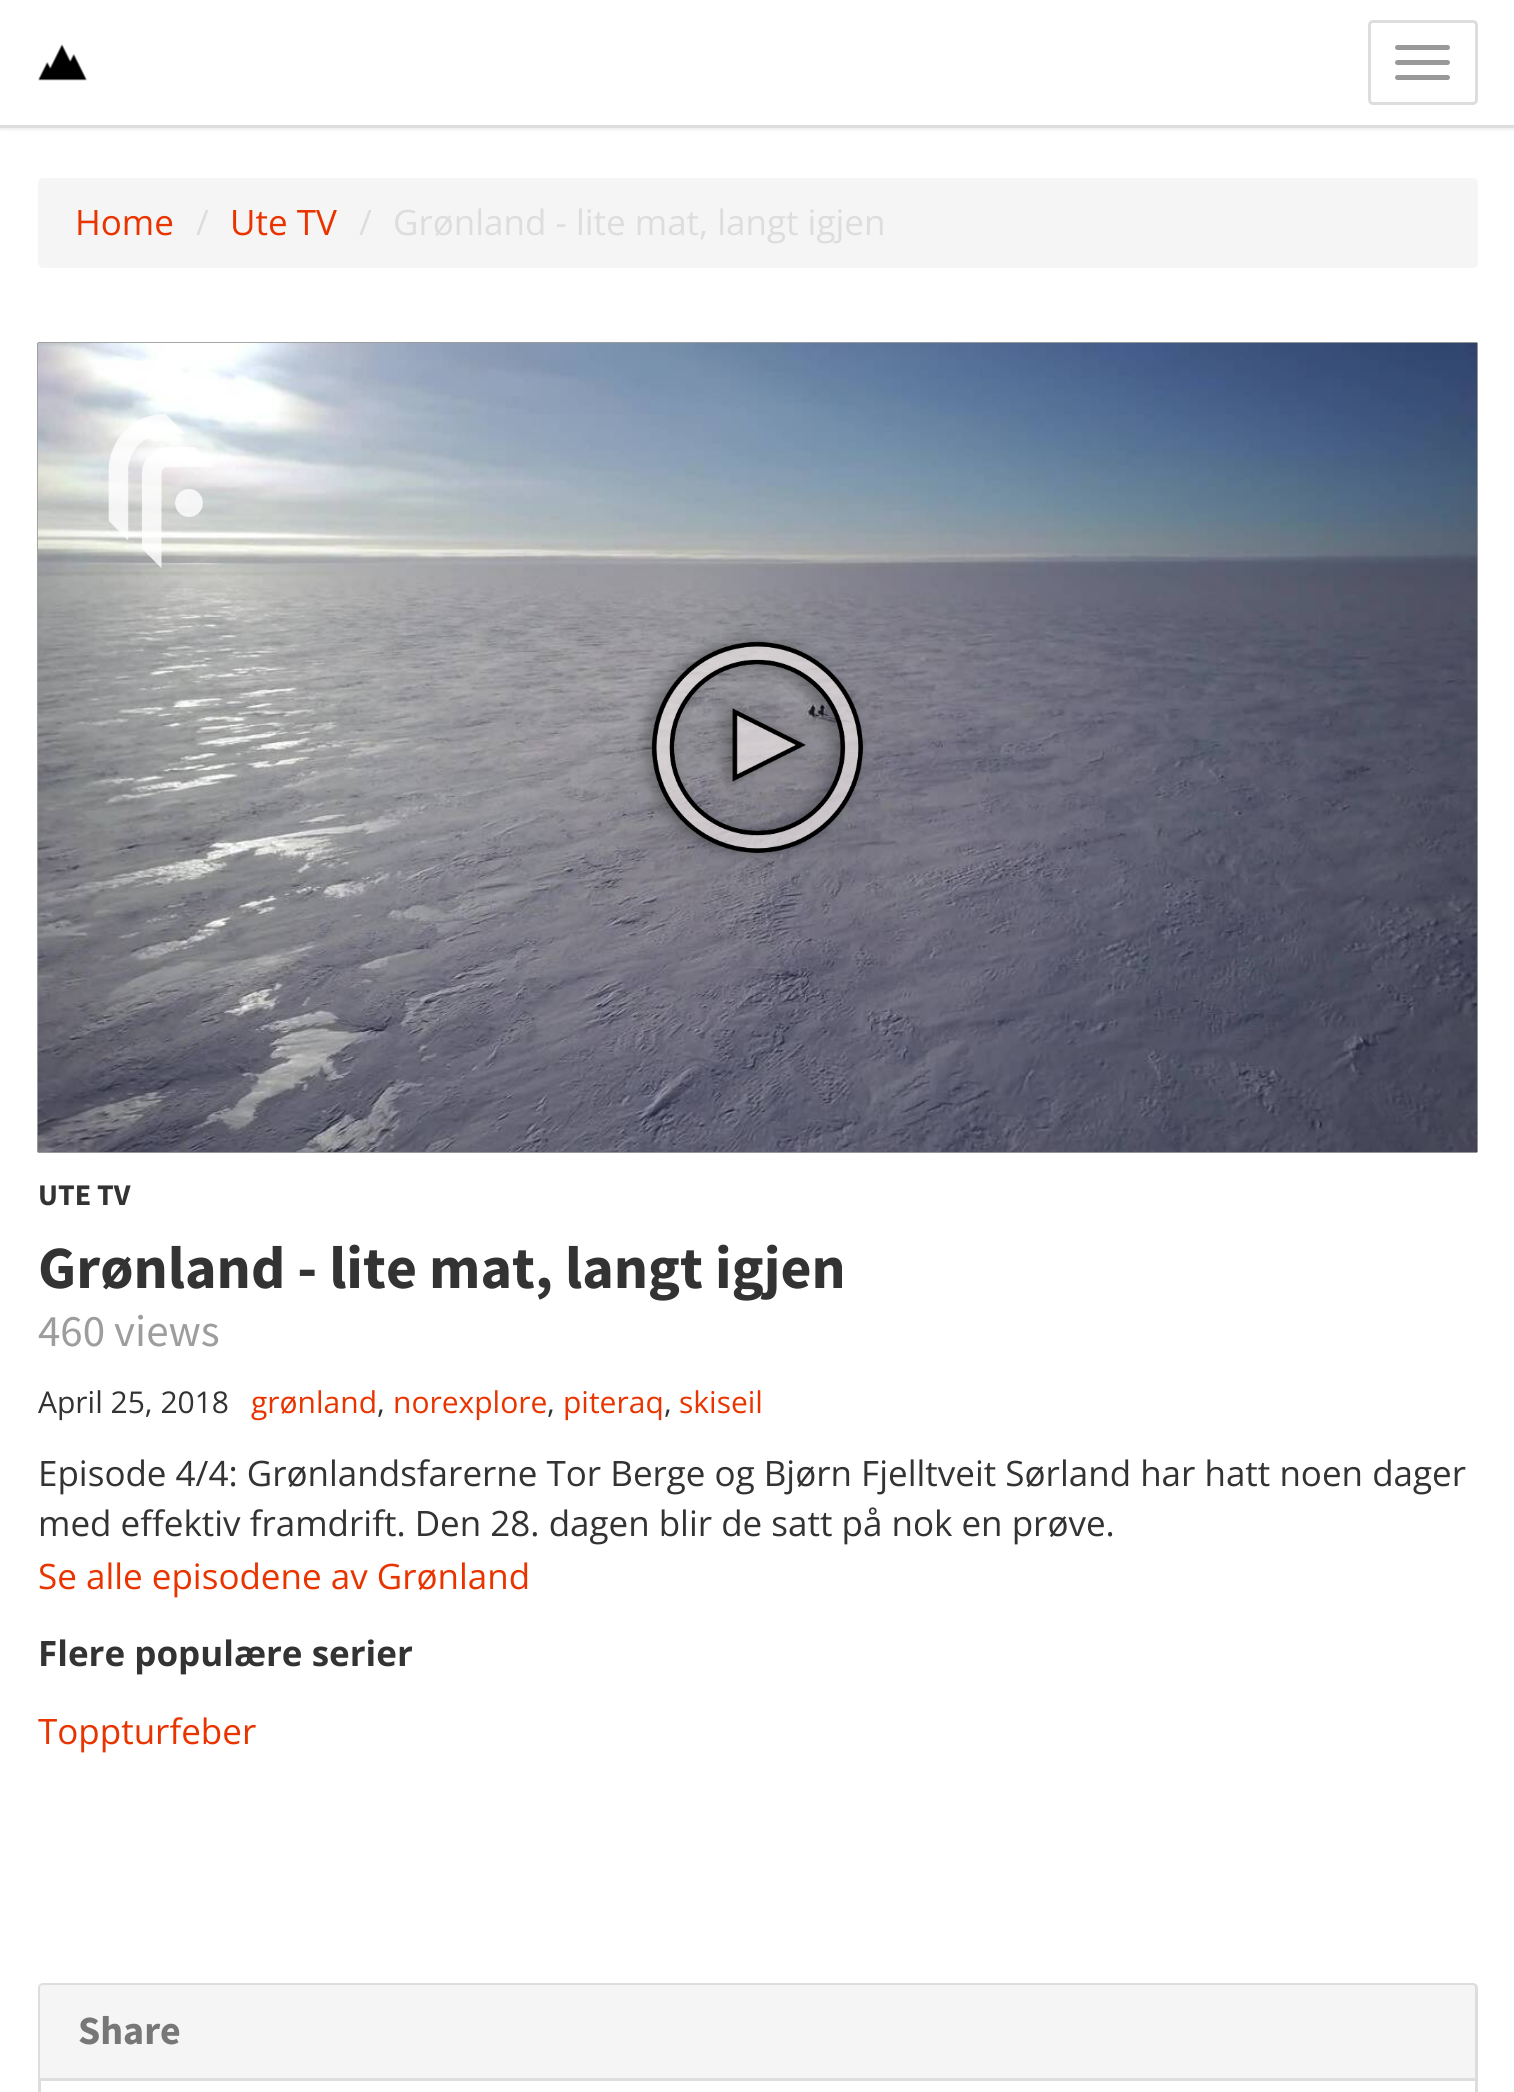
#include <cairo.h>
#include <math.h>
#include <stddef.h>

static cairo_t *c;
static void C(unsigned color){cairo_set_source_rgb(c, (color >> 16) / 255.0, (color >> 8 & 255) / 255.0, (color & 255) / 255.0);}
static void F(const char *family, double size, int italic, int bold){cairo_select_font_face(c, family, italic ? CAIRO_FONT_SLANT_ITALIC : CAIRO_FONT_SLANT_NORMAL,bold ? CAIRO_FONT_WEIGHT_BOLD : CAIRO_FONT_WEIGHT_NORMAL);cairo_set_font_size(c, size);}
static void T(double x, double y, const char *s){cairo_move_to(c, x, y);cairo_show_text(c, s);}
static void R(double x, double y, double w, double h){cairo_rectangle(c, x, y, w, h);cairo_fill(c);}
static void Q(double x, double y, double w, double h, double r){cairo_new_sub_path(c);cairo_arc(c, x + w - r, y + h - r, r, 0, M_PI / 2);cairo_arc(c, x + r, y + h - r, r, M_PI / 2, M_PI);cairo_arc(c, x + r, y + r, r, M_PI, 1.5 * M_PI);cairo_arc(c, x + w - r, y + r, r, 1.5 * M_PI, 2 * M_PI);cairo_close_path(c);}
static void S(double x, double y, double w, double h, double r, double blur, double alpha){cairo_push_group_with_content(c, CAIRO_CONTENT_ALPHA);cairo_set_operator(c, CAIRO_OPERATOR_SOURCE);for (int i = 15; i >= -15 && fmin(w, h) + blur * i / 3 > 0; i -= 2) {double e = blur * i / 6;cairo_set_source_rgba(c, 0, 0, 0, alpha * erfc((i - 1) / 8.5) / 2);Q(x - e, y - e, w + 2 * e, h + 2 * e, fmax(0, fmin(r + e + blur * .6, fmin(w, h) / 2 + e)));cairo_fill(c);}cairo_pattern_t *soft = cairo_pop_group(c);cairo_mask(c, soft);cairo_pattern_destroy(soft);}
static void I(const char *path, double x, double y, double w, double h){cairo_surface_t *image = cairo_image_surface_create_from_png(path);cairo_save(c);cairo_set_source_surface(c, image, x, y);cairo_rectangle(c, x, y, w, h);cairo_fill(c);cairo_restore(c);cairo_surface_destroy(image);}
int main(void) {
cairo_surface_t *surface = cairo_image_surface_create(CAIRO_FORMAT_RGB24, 1514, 2092);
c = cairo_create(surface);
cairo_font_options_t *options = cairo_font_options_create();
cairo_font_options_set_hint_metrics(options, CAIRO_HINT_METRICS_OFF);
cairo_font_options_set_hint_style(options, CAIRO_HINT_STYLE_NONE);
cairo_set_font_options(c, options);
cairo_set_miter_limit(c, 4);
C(0xffffff);
cairo_paint(c);
cairo_save(c);
cairo_rectangle(c,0,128,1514,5);
cairo_clip(c);
C(0xdddddd);
S(0,0,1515,128,0,2.5,1);
cairo_restore(c);
C(0xdddddd);
R(0,125,1514,3);
I("1.png",38,44,49,37);
Q(1369.5,21.5,107,82,3.5);
cairo_set_line_width(c,3);
cairo_stroke(c);
C(0x999999);
Q(1395,45,55,5,2.5);
cairo_fill(c);
Q(1395,60,55,5,2.5);
cairo_fill(c);
Q(1395,75,55,5,2.5);
cairo_fill(c);
C(0xf5f5f5);
Q(38,178,1440,90,5);
cairo_fill(c);
F("Open Sans",35,0,0);
C(0xe93400);
T(75,235,"Home");
C(0xdddddd);
T(196,235,"/");
C(0xe93400);
T(230,235,"Ute TV");
C(0xdddddd);
T(359,235,"/");
T(393,235,"Grønland - lite mat, langt igjen");
I("2.png",37,342,1441,811);
F("Source Sans Pro",30,0,1);
C(0x333333);
T(38,1205,"UTE TV");
F("Source Sans Pro",60,0,1);
T(38,1288,"Grønland - lite mat, langt igjen");
F("Source Sans Pro",45,0,0);
C(0x9d9d9d);
T(38,1346,"460 views");
F("Open Sans",30,0,0);
C(0x333333);
T(38,1413,"April 25, 2018");
C(0xe93400);
T(251,1413,"grønland");
C(0x333333);
T(377,1413,",");
C(0xe93400);
T(393,1413,"norexplore");
C(0x333333);
T(547,1413,",");
C(0xe93400);
T(563,1413,"piteraq");
C(0x333333);
T(664,1413,",");
C(0xe93400);
T(679,1413,"skiseil");
F("Open Sans",35,0,0);
C(0x333333);
T(38,1486,"Episode 4/4: Grønlandsfarerne Tor Berge og Bjørn Fjelltveit Sørland har hatt noen dager");
T(38,1536,"med effektiv framdrift. Den 28. dagen blir de satt på nok en prøve.");
C(0xe93400);
T(38,1589,"Se alle episodene av Grønland");
F("Open Sans",35,0,1);
C(0x333333);
T(38,1666,"Flere populære serier");
F("Open Sans",35,0,0);
C(0xe93400);
T(38,1744,"Toppturfeber");
Q(39.5,1984.5,1437,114,3.5);
C(0xdddddd);
cairo_stroke(c);
C(0xf5f5f5);
cairo_new_path(c);
cairo_move_to(c,42.5,1985);
cairo_line_to(c,1472.5,1985);
cairo_curve_to(c,1474,1985,1475,1986,1475,1987.5);
cairo_line_to(c,1475,2078);
cairo_line_to(c,40,2078);
cairo_line_to(c,40,1987.5);
cairo_curve_to(c,40,1986,41,1985,42.5,1985);
cairo_close_path(c);
cairo_fill(c);
F("Source Sans Pro",40,0,1);
C(0x777777);
T(78,2044,"Share");
C(0xdddddd);
R(40,2078,1435,3);
cairo_surface_write_to_png(surface, "o.png");
cairo_font_options_destroy(options);
cairo_destroy(c);
cairo_surface_destroy(surface);
return 0;
}
